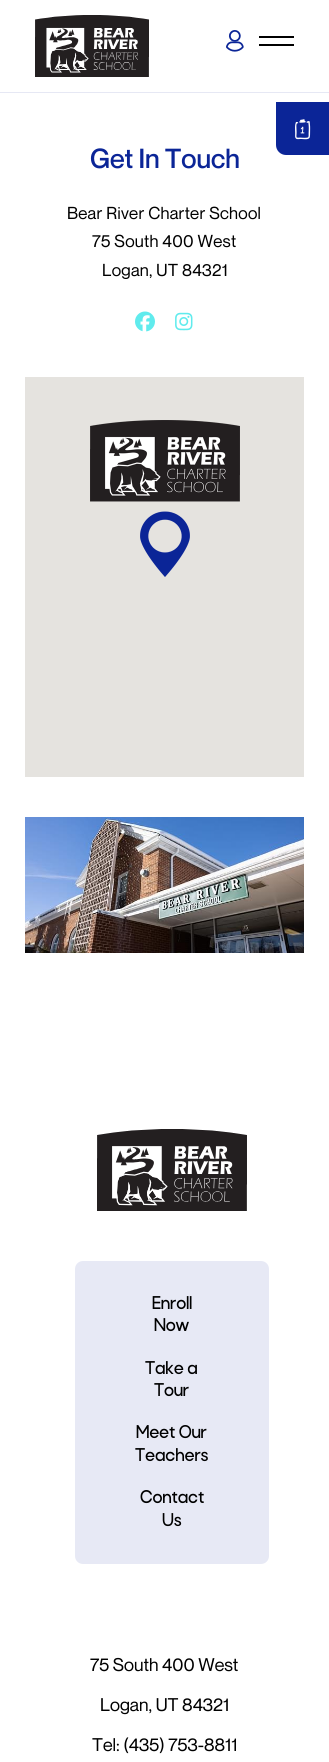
#include <cairo.h>
#include <math.h>
#include <stddef.h>

static cairo_t *c;
static void C(unsigned color){cairo_set_source_rgb(c, (color >> 16) / 255.0, (color >> 8 & 255) / 255.0, (color & 255) / 255.0);}
static void F(const char *family, double size, int italic, int bold){cairo_select_font_face(c, family, italic ? CAIRO_FONT_SLANT_ITALIC : CAIRO_FONT_SLANT_NORMAL,bold ? CAIRO_FONT_WEIGHT_BOLD : CAIRO_FONT_WEIGHT_NORMAL);cairo_set_font_size(c, size);}
static void T(double x, double y, const char *s){cairo_move_to(c, x, y);cairo_show_text(c, s);}
static void L(double x, double y, const char *s, double letter, double word){cairo_move_to(c, x, y);while (*s) {char ch[5] = {0};int n = 0;do ch[n++] = *s++; while ((*s & 0xC0) == 0x80);cairo_show_text(c, ch);cairo_rel_move_to(c, letter + word * (*ch == ' '), 0);}}
static void R(double x, double y, double w, double h){cairo_rectangle(c, x, y, w, h);cairo_fill(c);}
static void Q(double x, double y, double w, double h, double r){cairo_new_sub_path(c);cairo_arc(c, x + w - r, y + h - r, r, 0, M_PI / 2);cairo_arc(c, x + r, y + h - r, r, M_PI / 2, M_PI);cairo_arc(c, x + r, y + r, r, M_PI, 1.5 * M_PI);cairo_arc(c, x + w - r, y + r, r, 1.5 * M_PI, 2 * M_PI);cairo_close_path(c);}
static void I(const char *path, double x, double y, double w, double h){cairo_surface_t *image = cairo_image_surface_create_from_png(path);cairo_save(c);cairo_set_source_surface(c, image, x, y);cairo_rectangle(c, x, y, w, h);cairo_fill(c);cairo_restore(c);cairo_surface_destroy(image);}
int main(void) {
cairo_surface_t *surface = cairo_image_surface_create(CAIRO_FORMAT_RGB24, 329, 1762);
c = cairo_create(surface);
cairo_font_options_t *options = cairo_font_options_create();
cairo_font_options_set_hint_metrics(options, CAIRO_HINT_METRICS_OFF);
cairo_font_options_set_hint_style(options, CAIRO_HINT_STYLE_NONE);
cairo_set_font_options(c, options);
cairo_set_miter_limit(c, 4);
C(0xffffff);
cairo_paint(c);
C(0xe6e8f4);
R(0,92,329,1);
I("1.png",35,15,114,62);
I("2.png",226,30,18,22);
C(0x000000);
R(259,36,35,2);
R(259,44,35,2);
C(0x0b2597);
cairo_new_path(c);
cairo_move_to(c,276,102);
cairo_line_to(c,329,102);
cairo_line_to(c,329,155);
cairo_line_to(c,286,155);
cairo_curve_to(c,280.5,155,276,150.5,276,145);
cairo_close_path(c);
cairo_fill(c);
I("3.png",295,119,16,21);
F("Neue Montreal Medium",27,0,0);
T(90,168,"Get In Touch");
F("Neue Montreal",17,0,0);
C(0x000000);
L(67,219,"Bear River Charter School",.25,0);
L(92,247,"75 South 400 West",.25,0);
L(102,276,"Logan, UT 84321",.25,0);
I("4.png",135,311,20,21);
I("5.png",175,312,18,19);
C(0xe5e3df);
R(25,377,279,400);
I("6.png",90,420,150,157);
I("7.png",25,817,279,136);
I("8.png",97,1129,150,82);
C(0xe7e9f5);
Q(75,1261,194,303,8);
cairo_fill(c);
F("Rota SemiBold",19,0,0);
C(0x000000);
L(152,1309,"Enroll",-.25,0);
L(154,1331,"Now",-.25,0);
L(145,1374,"Take a",-.25,0);
L(154,1396,"Tour",-.25,0);
L(136,1438,"Meet Our",-.25,0);
L(135,1461,"Teachers",-.25,0);
L(140,1503,"Contact",-.25,0);
L(162,1526,"Us",-.25,0);
F("Neue Montreal",18,0,0);
T(90,1671,"75 South 400 West");
T(100,1711,"Logan, UT 84321");
T(92,1751,"Tel: (435) 753-8811");
cairo_surface_write_to_png(surface, "o.png");
cairo_font_options_destroy(options);
cairo_destroy(c);
cairo_surface_destroy(surface);
return 0;
}
